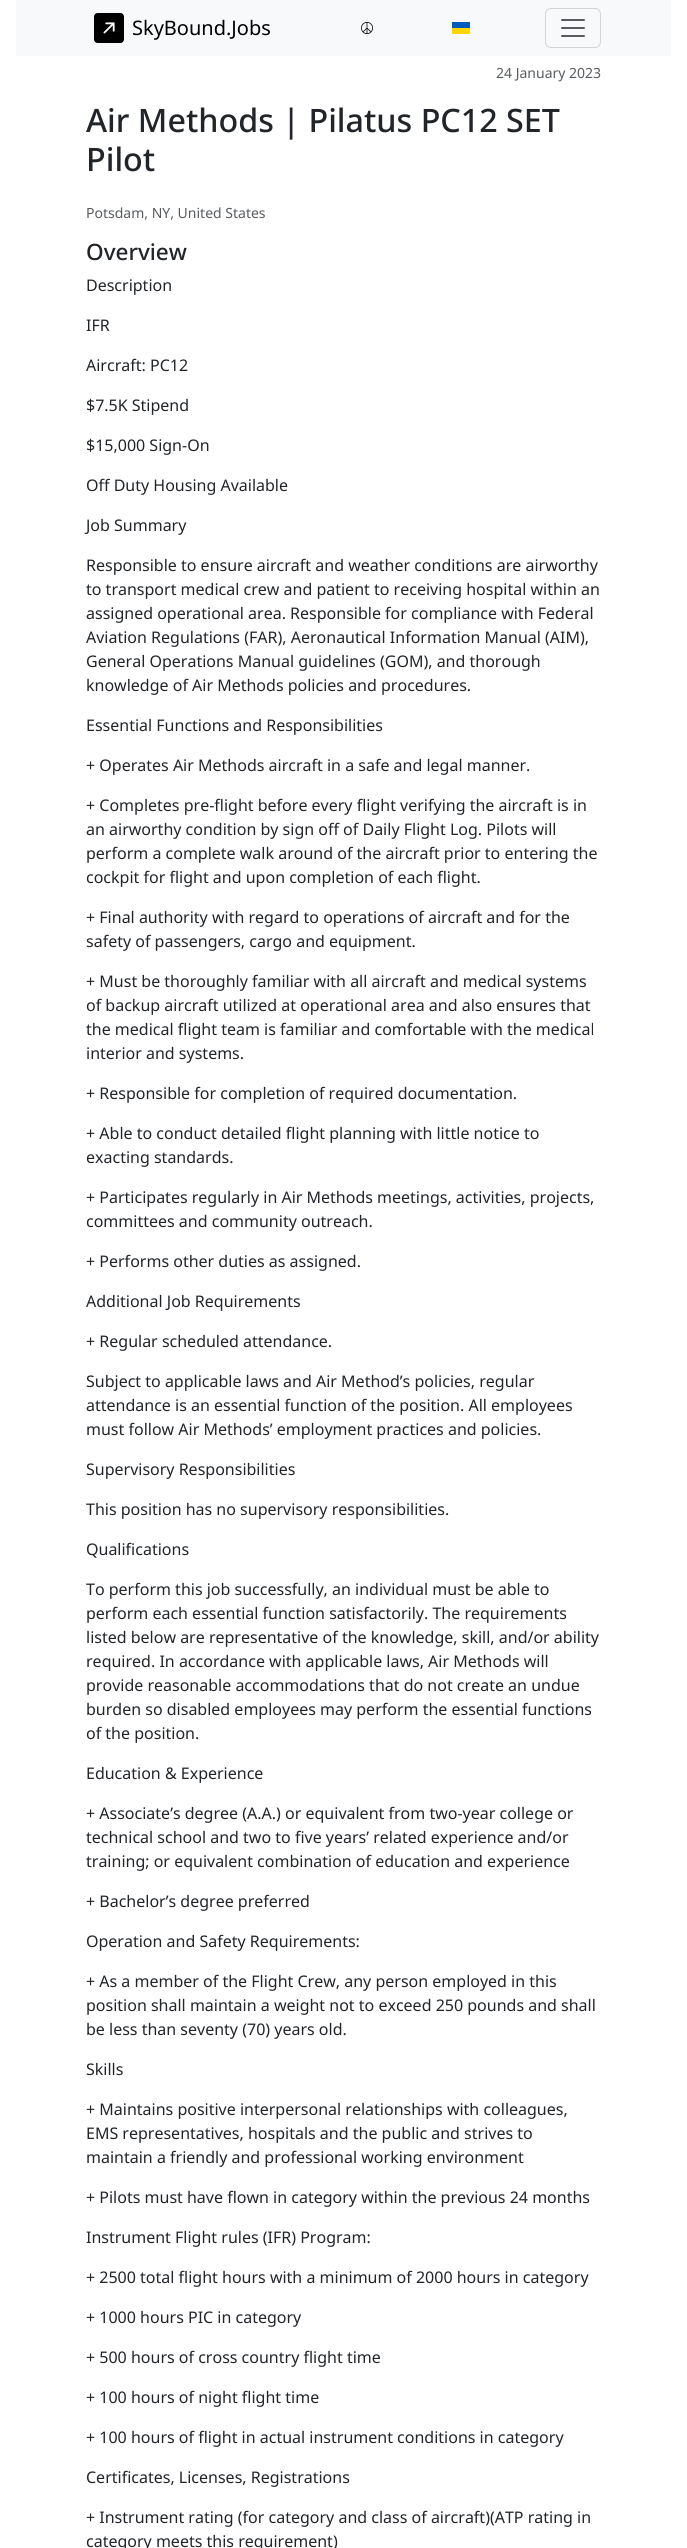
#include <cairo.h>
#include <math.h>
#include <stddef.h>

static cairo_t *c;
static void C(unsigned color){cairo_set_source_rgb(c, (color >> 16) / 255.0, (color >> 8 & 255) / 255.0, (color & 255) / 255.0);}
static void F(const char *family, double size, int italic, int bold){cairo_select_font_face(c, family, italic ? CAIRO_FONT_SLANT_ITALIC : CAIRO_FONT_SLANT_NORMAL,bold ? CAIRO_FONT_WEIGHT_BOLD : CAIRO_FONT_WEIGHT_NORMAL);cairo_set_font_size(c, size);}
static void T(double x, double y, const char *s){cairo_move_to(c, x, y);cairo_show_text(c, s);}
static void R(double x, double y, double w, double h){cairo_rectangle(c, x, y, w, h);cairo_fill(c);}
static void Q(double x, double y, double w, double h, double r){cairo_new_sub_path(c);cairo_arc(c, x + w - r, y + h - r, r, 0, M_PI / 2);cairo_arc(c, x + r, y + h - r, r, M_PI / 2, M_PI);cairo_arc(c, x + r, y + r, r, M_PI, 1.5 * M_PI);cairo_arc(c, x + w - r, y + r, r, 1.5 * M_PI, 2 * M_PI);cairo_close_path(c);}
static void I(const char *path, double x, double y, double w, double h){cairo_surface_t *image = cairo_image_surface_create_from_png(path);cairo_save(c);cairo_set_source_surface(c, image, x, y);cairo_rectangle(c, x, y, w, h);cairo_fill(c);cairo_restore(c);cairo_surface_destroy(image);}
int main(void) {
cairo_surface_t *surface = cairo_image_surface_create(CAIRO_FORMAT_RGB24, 687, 2548);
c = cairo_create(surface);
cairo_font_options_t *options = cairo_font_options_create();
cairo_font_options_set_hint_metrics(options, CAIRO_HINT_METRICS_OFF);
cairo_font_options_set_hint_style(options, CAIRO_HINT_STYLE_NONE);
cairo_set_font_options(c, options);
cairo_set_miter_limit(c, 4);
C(0xffffff);
cairo_paint(c);
C(0xf8f9fa);
R(16,0,655,56);
I("1.png",94,13,30,30);
F("Noto Sans",20,0,0);
C(0x000000);
T(132,35,"SkyBound.Jobs");
I("2.png",361,22,12,12);
C(0x005bbb);
R(452,22,18,6);
C(0xffd500);
R(452,28,18,6);
Q(545.5,8.5,55,39,5.5);
C(0xd3d4d5);
cairo_set_line_width(c,1);
cairo_stroke(c);
I("3.png",561,19,24,18);
F("Noto Sans",14,0,0);
C(0x595c5f);
T(496,78,"24 January 2023");
F("Noto Sans Medium",32.25,0,0);
C(0x212529);
T(86,132,"Air Methods | Pilatus PC12 SET");
T(86,171,"Pilot");
F("Noto Sans",14,0,0);
C(0x595c5f);
T(86,218,"Potsdam, NY, United States");
F("Noto Sans Medium",22.5,0,0);
C(0x212529);
T(86,260,"Overview");
F("Noto Sans",16,0,0);
T(86,291,"Description");
T(86,331,"IFR");
T(86,371,"Aircraft: PC12");
T(86,411,"$7.5K Stipend");
T(86,451,"$15,000 Sign-On");
T(86,491,"Off Duty Housing Available");
T(86,531,"Job Summary");
T(86,571,"Responsible to ensure aircraft and weather conditions are airworthy");
T(86,595,"to transport medical crew and patient to receiving hospital within an");
T(86,619,"assigned operational area. Responsible for compliance with Federal");
T(86,643,"Aviation Regulations (FAR), Aeronautical Information Manual (AIM),");
T(86,667,"General Operations Manual guidelines (GOM), and thorough");
T(86,691,"knowledge of Air Methods policies and procedures.");
T(86,731,"Essential Functions and Responsibilities");
T(86,771,"+ Operates Air Methods aircraft in a safe and legal manner.");
T(86,811,"+ Completes pre-flight before every flight verifying the aircraft is in");
T(86,835,"an airworthy condition by sign off of Daily Flight Log. Pilots will");
T(86,859,"perform a complete walk around of the aircraft prior to entering the");
T(86,883,"cockpit for flight and upon completion of each flight.");
T(86,923,"+ Final authority with regard to operations of aircraft and for the");
T(86,947,"safety of passengers, cargo and equipment.");
T(86,987,"+ Must be thoroughly familiar with all aircraft and medical systems");
T(86,1011,"of backup aircraft utilized at operational area and also ensures that");
T(86,1035,"the medical flight team is familiar and comfortable with the medical");
T(86,1059,"interior and systems.");
T(86,1099,"+ Responsible for completion of required documentation.");
T(86,1139,"+ Able to conduct detailed flight planning with little notice to");
T(86,1163,"exacting standards.");
T(86,1203,"+ Participates regularly in Air Methods meetings, activities, projects,");
T(86,1227,"committees and community outreach.");
T(86,1267,"+ Performs other duties as assigned.");
T(86,1307,"Additional Job Requirements");
T(86,1347,"+ Regular scheduled attendance.");
T(86,1387,"Subject to applicable laws and Air Method’s policies, regular");
T(86,1411,"attendance is an essential function of the position. All employees");
T(86,1435,"must follow Air Methods’ employment practices and policies.");
T(86,1475,"Supervisory Responsibilities");
T(86,1515,"This position has no supervisory responsibilities.");
T(86,1555,"Qualifications");
T(86,1595,"To perform this job successfully, an individual must be able to");
T(86,1619,"perform each essential function satisfactorily. The requirements");
T(86,1643,"listed below are representative of the knowledge, skill, and/or ability");
T(86,1667,"required. In accordance with applicable laws, Air Methods will");
T(86,1691,"provide reasonable accommodations that do not create an undue");
T(86,1715,"burden so disabled employees may perform the essential functions");
T(86,1739,"of the position.");
T(86,1779,"Education & Experience");
T(86,1819,"+ Associate’s degree (A.A.) or equivalent from two-year college or");
T(86,1843,"technical school and two to five years’ related experience and/or");
T(86,1867,"training; or equivalent combination of education and experience");
T(86,1907,"+ Bachelor’s degree preferred");
T(86,1947,"Operation and Safety Requirements:");
T(86,1987,"+ As a member of the Flight Crew, any person employed in this");
T(86,2011,"position shall maintain a weight not to exceed 250 pounds and shall");
T(86,2035,"be less than seventy (70) years old.");
T(86,2075,"Skills");
T(86,2115,"+ Maintains positive interpersonal relationships with colleagues,");
T(86,2139,"EMS representatives, hospitals and the public and strives to");
T(86,2163,"maintain a friendly and professional working environment");
T(86,2203,"+ Pilots must have flown in category within the previous 24 months");
T(86,2243,"Instrument Flight rules (IFR) Program:");
T(86,2283,"+ 2500 total flight hours with a minimum of 2000 hours in category");
T(86,2323,"+ 1000 hours PIC in category");
T(86,2363,"+ 500 hours of cross country flight time");
T(86,2403,"+ 100 hours of night flight time");
T(86,2443,"+ 100 hours of flight in actual instrument conditions in category");
T(86,2483,"Certificates, Licenses, Registrations");
T(86,2523,"+ Instrument rating (for category and class of aircraft)(ATP rating in");
T(86,2547,"category meets this requirement)");
cairo_surface_write_to_png(surface, "o.png");
cairo_font_options_destroy(options);
cairo_destroy(c);
cairo_surface_destroy(surface);
return 0;
}
